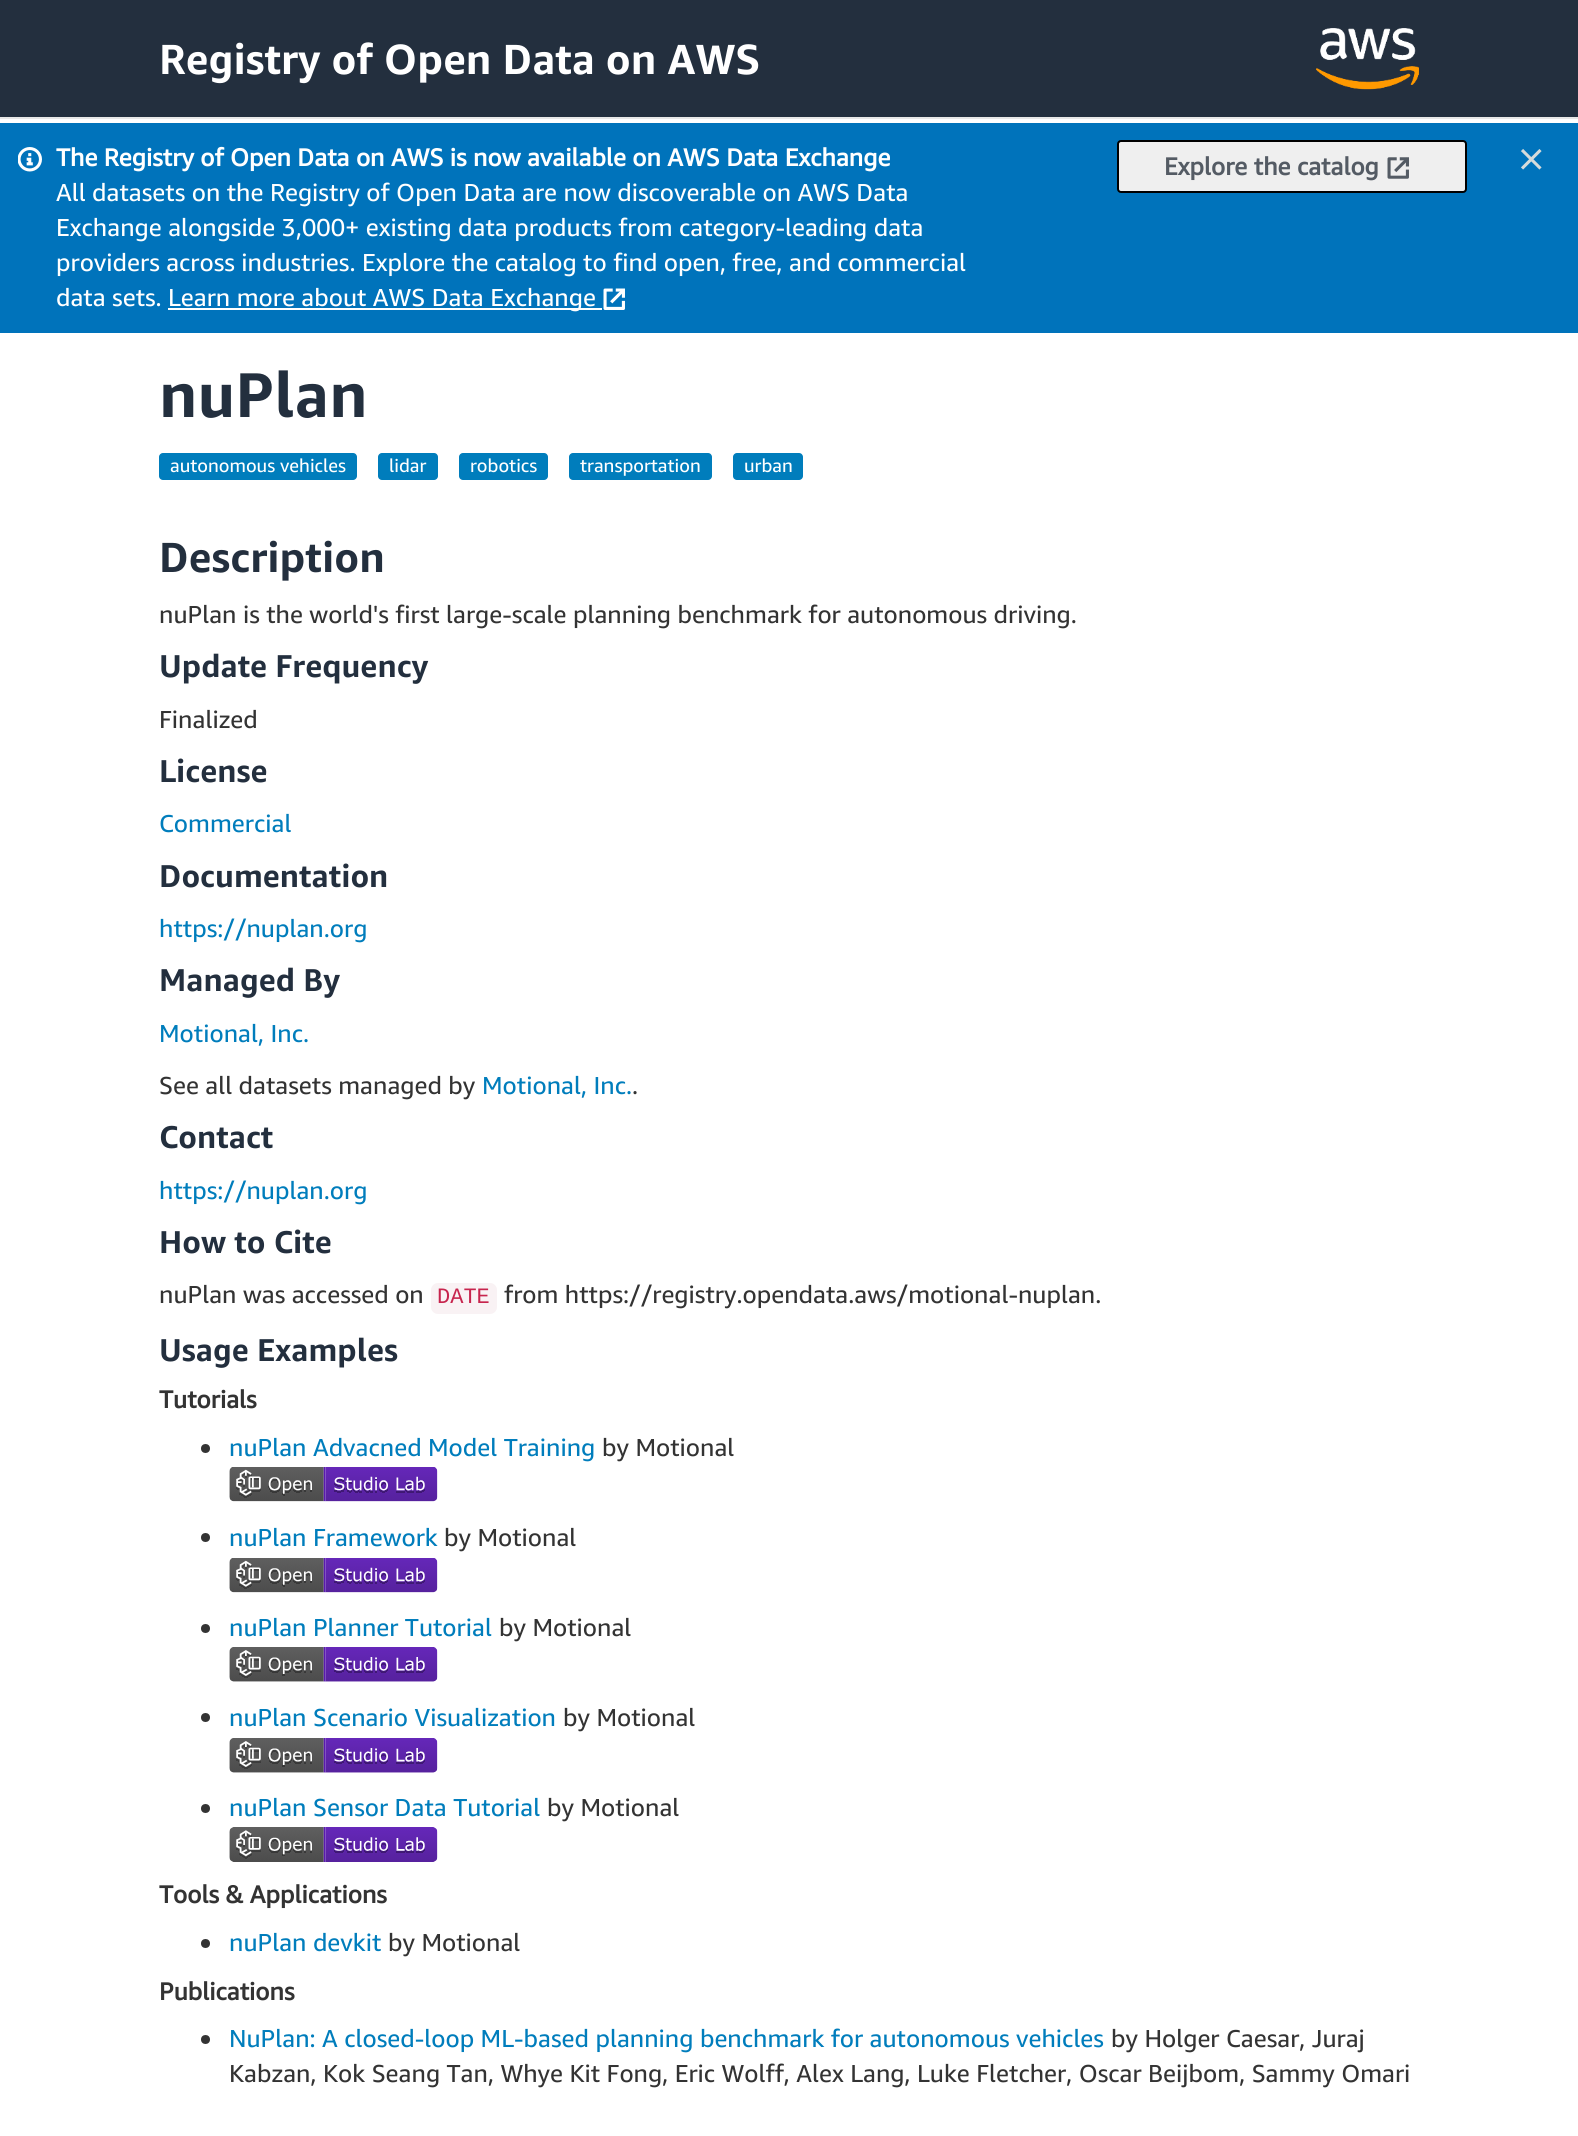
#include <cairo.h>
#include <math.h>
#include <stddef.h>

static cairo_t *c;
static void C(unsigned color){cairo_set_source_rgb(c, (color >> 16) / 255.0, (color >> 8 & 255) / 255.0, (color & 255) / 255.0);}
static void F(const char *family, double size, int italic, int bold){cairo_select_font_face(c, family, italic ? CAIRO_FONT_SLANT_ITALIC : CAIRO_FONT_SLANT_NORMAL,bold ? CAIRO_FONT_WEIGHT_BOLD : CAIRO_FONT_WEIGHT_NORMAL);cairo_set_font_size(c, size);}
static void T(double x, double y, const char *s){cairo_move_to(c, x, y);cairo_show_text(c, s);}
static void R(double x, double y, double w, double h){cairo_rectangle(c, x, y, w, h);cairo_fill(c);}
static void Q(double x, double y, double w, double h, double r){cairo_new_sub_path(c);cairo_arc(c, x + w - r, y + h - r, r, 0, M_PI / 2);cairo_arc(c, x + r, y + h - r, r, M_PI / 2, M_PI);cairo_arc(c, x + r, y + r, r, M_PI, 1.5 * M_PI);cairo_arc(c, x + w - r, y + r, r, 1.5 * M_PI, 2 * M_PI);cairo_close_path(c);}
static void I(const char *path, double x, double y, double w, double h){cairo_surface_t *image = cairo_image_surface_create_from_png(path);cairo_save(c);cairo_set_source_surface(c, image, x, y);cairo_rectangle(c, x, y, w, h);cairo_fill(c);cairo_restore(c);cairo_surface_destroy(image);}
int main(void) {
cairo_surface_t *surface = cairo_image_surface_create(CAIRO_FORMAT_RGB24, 1578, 2136);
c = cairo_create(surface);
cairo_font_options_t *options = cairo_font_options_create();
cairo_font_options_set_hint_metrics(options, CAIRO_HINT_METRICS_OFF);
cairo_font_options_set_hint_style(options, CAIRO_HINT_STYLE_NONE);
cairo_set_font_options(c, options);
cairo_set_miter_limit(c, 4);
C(0xffffff);
cairo_paint(c);
C(0x232f3e);
R(0,0,1578,117);
C(0xe7e7e7);
R(0,117,1578,2);
F("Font",42,0,1);
C(0xffffff);
T(159,74,"Registry of Open Data on AWS");
I("1.png",1316,28,103,62);
C(0x0073bb);
R(0,123,1578,210);
I("2.png",18,147,24,25);
F("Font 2",24.5,0,1);
C(0xffffff);
T(56,166,"The Registry of Open Data on AWS is now available on AWS Data Exchange");
F("Font",24.5,0,0);
T(56,201,"All datasets on the Registry of Open Data are now discoverable on AWS Data");
T(56,236,"Exchange alongside 3,000+ existing data products from category-leading data");
T(56,271,"providers across industries. Explore the catalog to find open, free, and commercial");
T(56,306,"data sets.");
R(168,308,434,2);
T(168,306,"Learn more about AWS Data Exchange");
I("3.png",603,288,22,22);
C(0xefefef);
Q(1118,141,348,51,3);
cairo_fill_preserve(c);
C(0x000000);
cairo_stroke(c);
F("Font 2",24.5,0,1);
C(0x545b64);
T(1164,175,"Explore the catalog");
I("4.png",1387,157,22,22);
cairo_new_path(c);
cairo_move_to(c,1522,150);
cairo_line_to(c,1540.5,168.5);
cairo_move_to(c,1540.5,150);
cairo_line_to(c,1522,168.5);
C(0xd5dbdb);
cairo_set_line_width(c,3.1);
cairo_stroke(c);
F("Font",63,0,1);
C(0x232f3e);
T(159,417,"nuPlan");
C(0x007dbc);
Q(159,453,198,27,4);
cairo_fill(c);
F("Font",18.4,0,0);
C(0xffffff);
T(170,472,"autonomous vehicles");
C(0x007dbc);
Q(378,453,60,27,4);
cairo_fill(c);
C(0xffffff);
T(389,472,"lidar");
C(0x007dbc);
Q(459,453,89,27,4);
cairo_fill(c);
C(0xffffff);
T(470,472,"robotics");
C(0x007dbc);
Q(569,453,143,27,4);
cairo_fill(c);
C(0xffffff);
T(580,472,"transportation");
C(0x007dbc);
Q(733,453,70,27,4);
cairo_fill(c);
C(0xffffff);
T(744,472,"urban");
F("Font",42,0,1);
C(0x232f3e);
T(159,572,"Description");
F("Font",24.5,0,0);
C(0x333333);
T(159,623,"nuPlan is the world's first large-scale planning benchmark for autonomous driving.");
F("Font",31.5,0,1);
C(0x232f3e);
T(159,677,"Update Frequency");
F("Font",24.5,0,0);
C(0x333333);
T(159,728,"Finalized");
F("Font",31.5,0,1);
C(0x232f3e);
T(159,782,"License");
F("Font",24.5,0,0);
C(0x007dbc);
T(159,832,"Commercial");
F("Font",31.5,0,1);
C(0x232f3e);
T(159,887,"Documentation");
F("Font",24.5,0,0);
C(0x007dbc);
T(159,937,"https://nuplan.org");
F("Font",31.5,0,1);
C(0x232f3e);
T(159,991,"Managed By");
F("Font",24.5,0,0);
C(0x007dbc);
T(159,1042,"Motional, Inc.");
C(0x333333);
T(159,1094,"See all datasets managed by");
C(0x007dbc);
T(482,1094,"Motional, Inc.");
C(0x333333);
T(632,1094,".");
F("Font",31.5,0,1);
C(0x232f3e);
T(159,1148,"Contact");
F("Font",24.5,0,0);
C(0x007dbc);
T(159,1199,"https://nuplan.org");
F("Font",31.5,0,1);
C(0x232f3e);
T(159,1253,"How to Cite");
F("Font",24.5,0,0);
C(0x333333);
T(159,1303,"nuPlan was accessed on");
C(0xf9f2f4);
Q(431,1283,66,31,7);
cairo_fill(c);
F("Liberation Mono",22,0,0);
C(0xc7254e);
T(437,1303,"DATE");
F("Font",24.5,0,0);
C(0x333333);
T(504,1303,"from https://registry.opendata.aws/motional-nuplan.");
F("Font",31.5,0,1);
C(0x232f3e);
T(159,1361,"Usage Examples");
F("Font 2",24.5,0,1);
C(0x333333);
T(159,1408,"Tutorials");
cairo_new_path(c);
cairo_arc(c,205.5,1448.5,4.5,0,2 * M_PI);
cairo_fill(c);
F("Font",24.5,0,0);
C(0x007dbc);
T(229,1456,"nuPlan Advacned Model Training");
C(0x333333);
T(602,1456,"by Motional");
I("5.png",229,1467,209,35);
cairo_arc(c,205.5,1537.5,4.5,0,2 * M_PI);
cairo_fill(c);
C(0x007dbc);
T(229,1546,"nuPlan Framework");
C(0x333333);
T(444,1546,"by Motional");
I("6.png",229,1558,209,35);
cairo_arc(c,205.5,1628.5,4.5,0,2 * M_PI);
cairo_fill(c);
C(0x007dbc);
T(229,1636,"nuPlan Planner Tutorial");
C(0x333333);
T(499,1636,"by Motional");
I("7.png",229,1647,209,35);
cairo_arc(c,205.5,1717.5,4.5,0,2 * M_PI);
cairo_fill(c);
C(0x007dbc);
T(229,1726,"nuPlan Scenario Visualization");
C(0x333333);
T(563,1726,"by Motional");
I("8.png",229,1738,209,35);
cairo_arc(c,205.5,1808.5,4.5,0,2 * M_PI);
cairo_fill(c);
C(0x007dbc);
T(229,1816,"nuPlan Sensor Data Tutorial");
C(0x333333);
T(547,1816,"by Motional");
I("9.png",229,1827,209,35);
F("Font 2",24.5,0,1);
T(159,1903,"Tools & Applications");
cairo_new_path(c);
cairo_arc(c,205.5,1943.5,4.5,0,2 * M_PI);
cairo_fill(c);
F("Font",24.5,0,0);
C(0x007dbc);
T(229,1951,"nuPlan devkit");
C(0x333333);
T(388,1951,"by Motional");
F("Font 2",24.5,0,1);
T(159,2000,"Publications");
cairo_new_path(c);
cairo_arc(c,205.5,2039.5,4.5,0,2 * M_PI);
cairo_fill(c);
F("Font",24.5,0,0);
C(0x007dbc);
T(229,2047,"NuPlan: A closed-loop ML-based planning benchmark for autonomous vehicles");
C(0x333333);
T(1111,2047,"by Holger Caesar, Juraj");
T(229,2082,"Kabzan, Kok Seang Tan, Whye Kit Fong, Eric Wolff, Alex Lang, Luke Fletcher, Oscar Beijbom, Sammy Omari");
cairo_surface_write_to_png(surface, "o.png");
cairo_font_options_destroy(options);
cairo_destroy(c);
cairo_surface_destroy(surface);
return 0;
}
